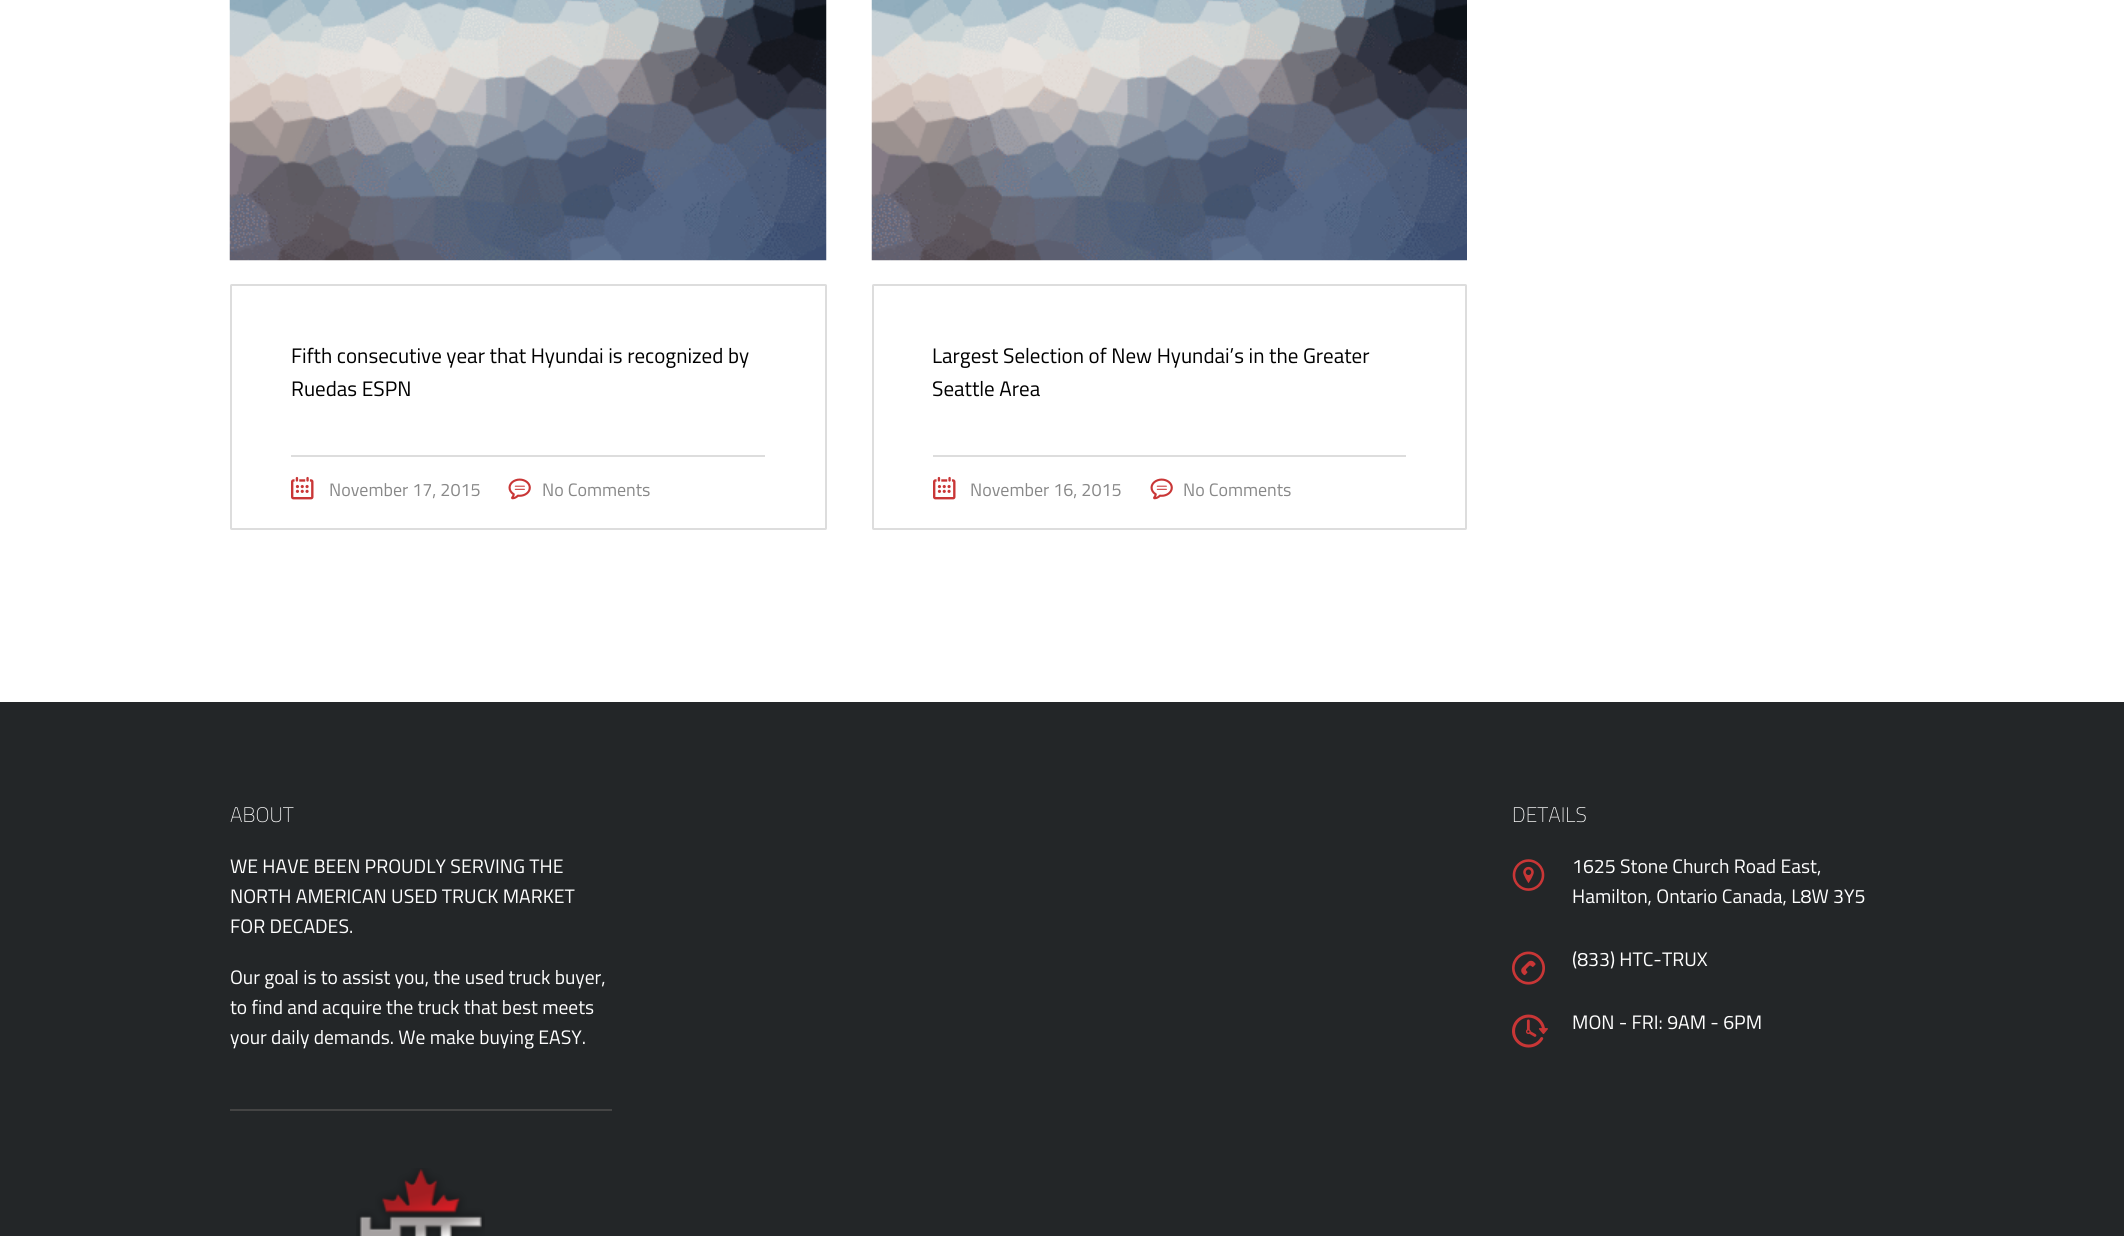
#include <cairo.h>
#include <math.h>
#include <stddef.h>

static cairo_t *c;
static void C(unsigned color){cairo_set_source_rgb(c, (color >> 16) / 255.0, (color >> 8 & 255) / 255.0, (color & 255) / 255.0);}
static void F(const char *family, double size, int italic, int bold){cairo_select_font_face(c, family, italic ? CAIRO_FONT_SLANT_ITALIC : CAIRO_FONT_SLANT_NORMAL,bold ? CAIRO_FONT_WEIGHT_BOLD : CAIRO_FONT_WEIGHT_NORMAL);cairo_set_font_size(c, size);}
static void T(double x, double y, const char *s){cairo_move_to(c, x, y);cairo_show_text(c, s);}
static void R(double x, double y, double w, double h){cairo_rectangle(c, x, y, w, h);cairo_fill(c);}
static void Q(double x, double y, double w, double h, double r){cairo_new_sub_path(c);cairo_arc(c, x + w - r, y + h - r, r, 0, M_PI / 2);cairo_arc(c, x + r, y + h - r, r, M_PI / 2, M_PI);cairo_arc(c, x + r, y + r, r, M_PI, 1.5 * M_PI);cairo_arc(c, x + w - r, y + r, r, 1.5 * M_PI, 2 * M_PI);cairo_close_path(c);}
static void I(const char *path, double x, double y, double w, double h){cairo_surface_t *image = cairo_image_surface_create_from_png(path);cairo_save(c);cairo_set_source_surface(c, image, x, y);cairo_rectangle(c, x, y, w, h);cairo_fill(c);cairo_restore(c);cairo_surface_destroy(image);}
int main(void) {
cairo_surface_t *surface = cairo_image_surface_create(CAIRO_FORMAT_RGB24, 2124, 1236);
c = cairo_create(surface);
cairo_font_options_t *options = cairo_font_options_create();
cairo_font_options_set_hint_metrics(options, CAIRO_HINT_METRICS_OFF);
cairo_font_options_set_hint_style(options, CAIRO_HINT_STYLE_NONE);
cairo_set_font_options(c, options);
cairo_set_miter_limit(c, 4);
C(0xffffff);
cairo_paint(c);
I("1.png",229,0,598,261);
Q(231,285,595,244,.5);
C(0xdddddd);
cairo_stroke(c);
F("Titillium Web",21,0,0);
C(0x000000);
T(291,363,"Fifth consecutive year that Hyundai is recognized by");
T(291,396,"Ruedas ESPN");
C(0xdddddd);
R(291,455,474,2);
I("2.png",291,476,23,24);
F("Titillium Web",18,0,0);
C(0x888888);
T(329,496,"November 17, 2015");
I("3.png",508,478,23,22);
T(542,496,"No Comments");
I("4.png",871,0,596,261);
Q(873,285,593,244,.5);
C(0xdddddd);
cairo_stroke(c);
F("Titillium Web",21,0,0);
C(0x000000);
T(932,363,"Largest Selection of New Hyundai’s in the Greater");
T(932,396,"Seattle Area");
C(0xdddddd);
R(933,455,473,2);
I("2.png",933,476,23,24);
F("Titillium Web",18,0,0);
C(0x888888);
T(970,496,"November 16, 2015");
I("3.png",1150,478,23,22);
T(1183,496,"No Comments");
C(0x232628);
R(0,702,2124,534);
F("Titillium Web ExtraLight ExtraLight",21,0,0);
C(0xffffff);
T(230,822,"ABOUT");
F("Titillium Web",19.5,0,0);
T(230,873,"WE HAVE BEEN PROUDLY SERVING THE");
T(230,903,"NORTH AMERICAN USED TRUCK MARKET");
T(230,933,"FOR DECADES.");
T(230,984,"Our goal is to assist you, the used truck buyer,");
T(230,1014,"to find and acquire the truck that best meets");
T(230,1044,"your daily demands. We make buying EASY.");
F("Titillium Web ExtraLight ExtraLight",21,0,0);
T(1512,822,"DETAILS");
I("5.png",1512,859,33,32);
F("Titillium Web",19.5,0,0);
T(1572,873,"1625 Stone Church Road East,");
T(1572,903,"Hamilton, Ontario Canada, L8W 3Y5");
I("6.png",1512,951,33,34);
T(1572,966,"(833) HTC-TRUX");
I("7.png",1512,1014,36,34);
T(1572,1029,"MON - FRI: 9AM - 6PM");
C(0x444444);
R(230,1109,382,2);
I("8.png",356,1168,129,68);
cairo_surface_write_to_png(surface, "o.png");
cairo_font_options_destroy(options);
cairo_destroy(c);
cairo_surface_destroy(surface);
return 0;
}
